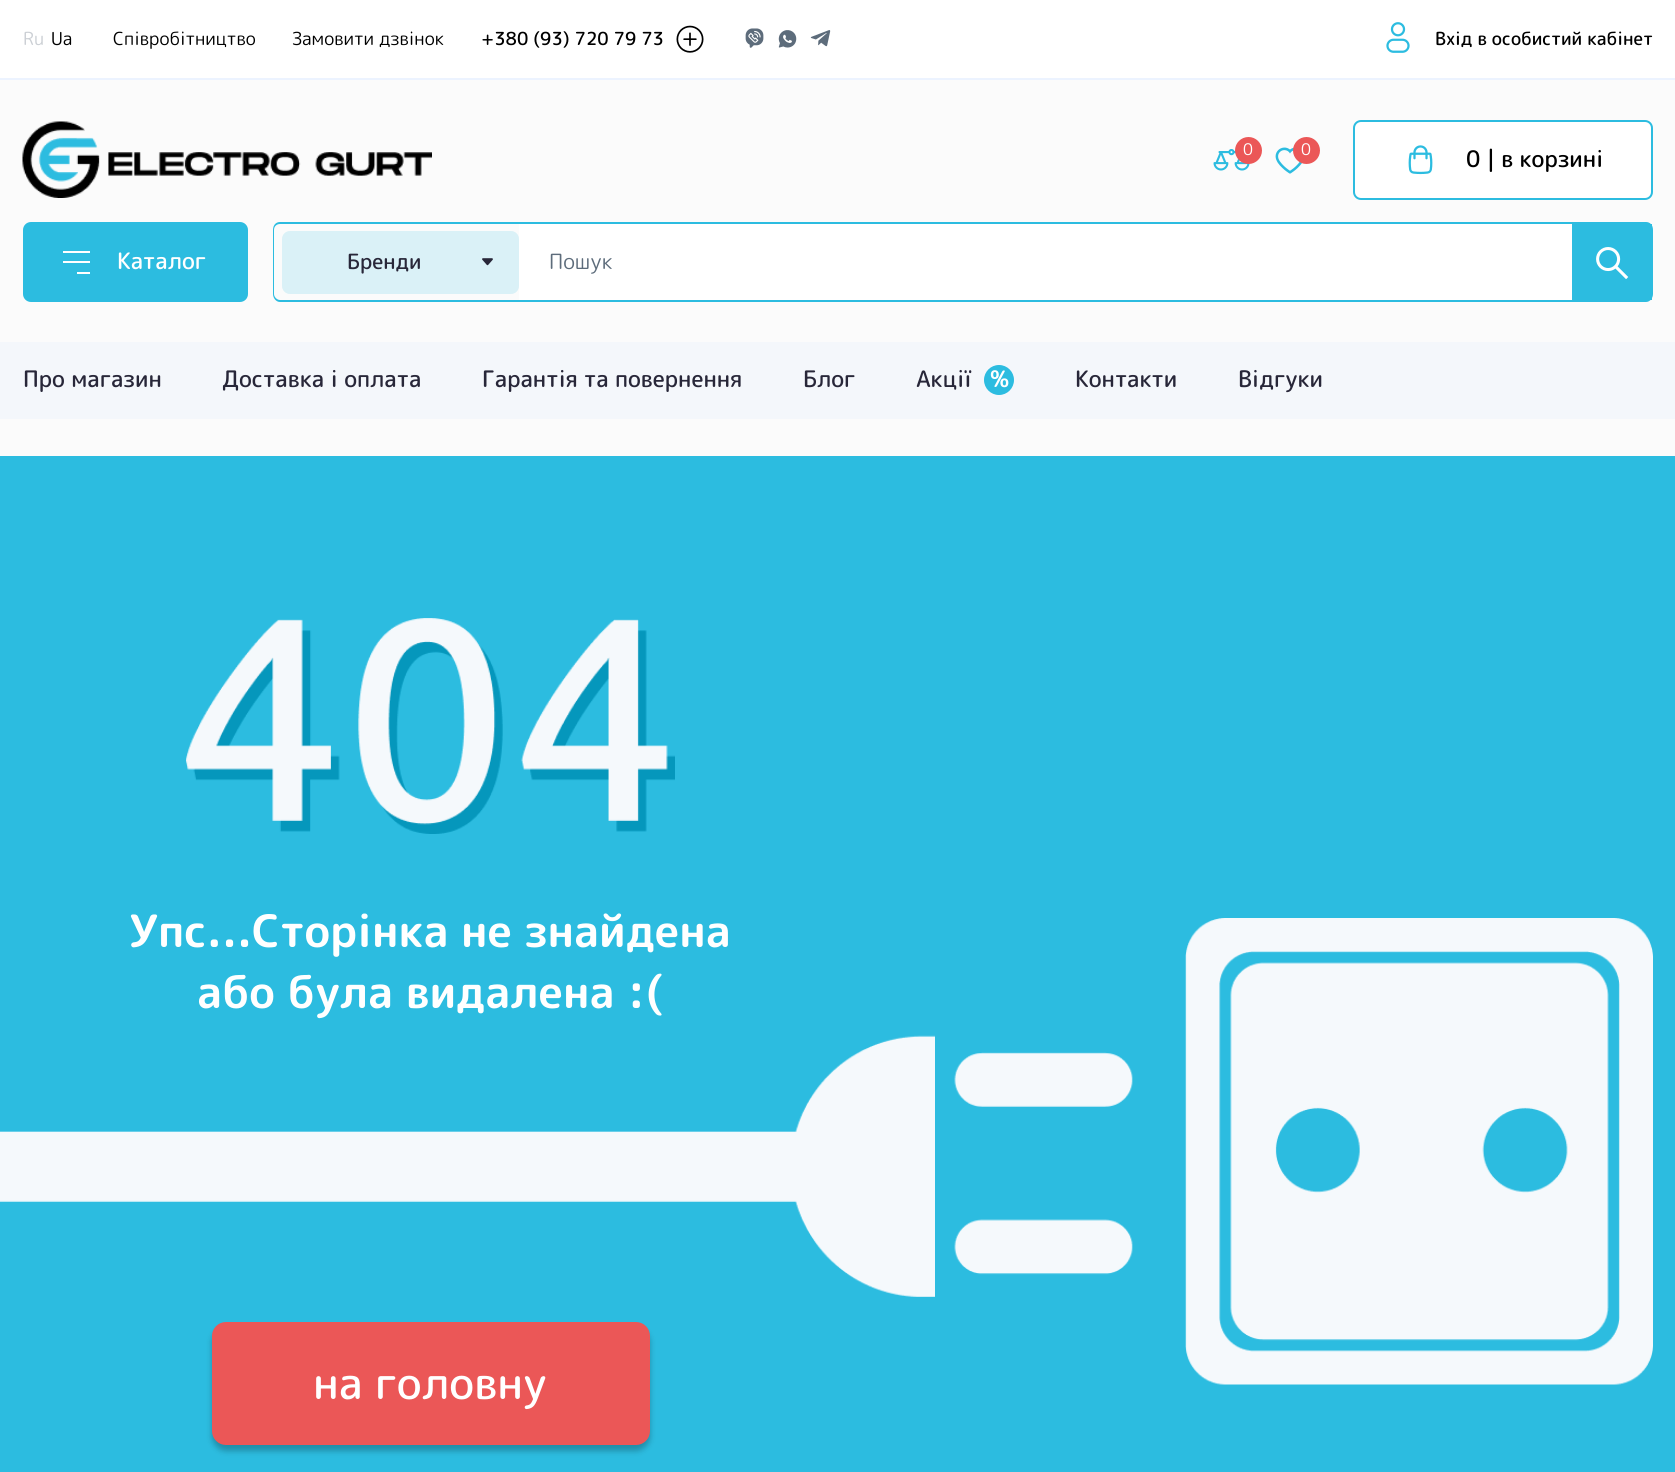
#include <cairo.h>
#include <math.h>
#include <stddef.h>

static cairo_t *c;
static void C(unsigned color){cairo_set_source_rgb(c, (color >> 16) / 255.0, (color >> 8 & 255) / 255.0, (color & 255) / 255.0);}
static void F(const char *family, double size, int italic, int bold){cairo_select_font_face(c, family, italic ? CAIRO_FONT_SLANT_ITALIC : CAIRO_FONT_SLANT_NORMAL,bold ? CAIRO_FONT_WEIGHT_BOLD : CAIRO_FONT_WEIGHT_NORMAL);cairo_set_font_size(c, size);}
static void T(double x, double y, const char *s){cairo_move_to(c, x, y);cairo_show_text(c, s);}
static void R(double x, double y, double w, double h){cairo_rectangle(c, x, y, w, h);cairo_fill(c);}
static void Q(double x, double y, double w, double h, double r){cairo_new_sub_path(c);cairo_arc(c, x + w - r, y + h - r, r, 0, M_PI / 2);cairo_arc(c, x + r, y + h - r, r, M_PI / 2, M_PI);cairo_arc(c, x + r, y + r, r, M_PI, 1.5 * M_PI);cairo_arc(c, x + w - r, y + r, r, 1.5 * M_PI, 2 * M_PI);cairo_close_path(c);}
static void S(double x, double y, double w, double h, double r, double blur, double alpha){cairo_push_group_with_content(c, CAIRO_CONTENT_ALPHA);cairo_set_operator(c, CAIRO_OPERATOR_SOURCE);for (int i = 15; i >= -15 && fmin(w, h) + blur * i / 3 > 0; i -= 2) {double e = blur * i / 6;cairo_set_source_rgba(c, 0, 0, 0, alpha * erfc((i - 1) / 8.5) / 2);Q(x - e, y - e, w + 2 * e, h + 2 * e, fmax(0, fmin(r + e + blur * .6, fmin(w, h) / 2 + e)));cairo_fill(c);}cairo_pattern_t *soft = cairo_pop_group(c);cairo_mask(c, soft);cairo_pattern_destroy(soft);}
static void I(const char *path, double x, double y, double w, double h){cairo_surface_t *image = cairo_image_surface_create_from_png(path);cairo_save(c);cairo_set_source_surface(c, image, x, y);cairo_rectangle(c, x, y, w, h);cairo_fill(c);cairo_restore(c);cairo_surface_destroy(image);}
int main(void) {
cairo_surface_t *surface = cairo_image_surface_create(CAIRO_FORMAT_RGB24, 1675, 1472);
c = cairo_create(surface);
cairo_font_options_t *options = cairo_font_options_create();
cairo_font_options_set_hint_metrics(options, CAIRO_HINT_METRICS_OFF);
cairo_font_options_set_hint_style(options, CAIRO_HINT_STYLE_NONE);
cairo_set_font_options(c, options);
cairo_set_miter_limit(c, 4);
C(0xfbfbfb);
cairo_paint(c);
C(0xffffff);
R(0,0,1675,78);
C(0xecf3ff);
R(0,78,1675,2);
F("Rounded Mplus 1c",18,0,0);
C(0xcbcfd4);
T(23,45,"Ru");
C(0x000000);
T(51,45,"Ua");
T(113,45,"Співробітництво");
T(292,45,"Замовити дзвінок");
F("Rounded Mplus 1c Medium",18,0,0);
T(481,45,"+380 (93) 720 79 73");
I("1.png",676,25,28,28);
I("2.png",745,28,19,20);
I("3.png",778,30,19,18);
I("4.png",810,30,21,17);
I("5.png",1386,22,24,31);
T(1435,45,"Вхід в особистий кабінет");
I("6.png",22,121,410,77);
I("7.png",1213,149,37,22);
C(0xeb5757);
cairo_arc(c,1248.5,150.5,13.5,0,2 * M_PI);
cairo_fill(c);
F("Rounded Mplus 1c",16,0,0);
C(0xffffff);
T(1243,155,"0");
I("8.png",1275,147,27,27);
C(0xeb5757);
cairo_arc(c,1306.5,150.5,13.5,0,2 * M_PI);
cairo_fill(c);
C(0xffffff);
T(1301,155,"0");
Q(1354,121,298,78,7);
cairo_fill_preserve(c);
C(0x2cbce0);
cairo_stroke(c);
I("9.png",1408,145,25,30);
F("Rounded Mplus 1c Medium",22.75,0,0);
C(0x000000);
T(1466,167,"0 | в корзині");
C(0x2cbce0);
Q(24,223,223,78,7);
cairo_fill_preserve(c);
cairo_stroke(c);
C(0xffffff);
R(63,251,27,2);
R(63,261,27,2);
R(77,272,13,2);
T(117,269,"Каталог");
C(0x2cbce0);
cairo_set_fill_rule(c,CAIRO_FILL_RULE_EVEN_ODD);
cairo_new_path(c);
cairo_move_to(c,280,222);
cairo_line_to(c,519,222);
cairo_line_to(c,519,302);
cairo_line_to(c,280,302);
cairo_curve_to(c,276,302,273,298,273,294);
cairo_line_to(c,273,230);
cairo_curve_to(c,273,225,276,222,280,222);
cairo_close_path(c);
cairo_move_to(c,280,224);
cairo_line_to(c,519,224);
cairo_line_to(c,519,300);
cairo_line_to(c,280,300);
cairo_curve_to(c,277,300,274,297,274,294);
cairo_line_to(c,274,230);
cairo_curve_to(c,274,226,277,224,280,224);
cairo_close_path(c);
cairo_fill(c);
C(0xdaf1f7);
Q(282,231,237,63,8);
cairo_fill(c);
F("Rounded Mplus 1c Medium",21,0,0);
C(0x282739);
T(347,269,"Бренди");
I("10.png",482,258,11,8);
C(0xffffff);
cairo_new_path(c);
cairo_move_to(c,519,222);
cairo_line_to(c,1645,222);
cairo_curve_to(c,1649.5,222,1653,225.5,1653,230);
cairo_line_to(c,1653,294);
cairo_curve_to(c,1653,298.5,1649.5,302,1645,302);
cairo_line_to(c,519,302);
cairo_close_path(c);
cairo_fill(c);
C(0x2cbce0);
cairo_new_path(c);
cairo_move_to(c,519,222);
cairo_line_to(c,1646,222);
cairo_curve_to(c,1650,222,1653,225,1653,230);
cairo_line_to(c,1653,294);
cairo_curve_to(c,1653,298,1650,302,1646,302);
cairo_line_to(c,519,302);
cairo_close_path(c);
cairo_move_to(c,519,224);
cairo_line_to(c,1646,224);
cairo_curve_to(c,1649,224,1652,226,1652,230);
cairo_line_to(c,1652,294);
cairo_curve_to(c,1652,297,1649,300,1646,300);
cairo_line_to(c,519,300);
cairo_close_path(c);
cairo_fill(c);
F("Rounded Mplus 1c",21,0,0);
C(0x5d6c7b);
T(549,269,"Пошук");
C(0x2cbce0);
R(1572,224,80,76);
I("11.png",1596,247,33,32);
C(0xf4f7fb);
R(0,342,1675,77);
F("Rounded Mplus 1c Medium",22.75,0,0);
C(0x282739);
T(23,387,"Про магазин");
T(222,387,"Доставка і оплата");
T(482,387,"Гарантія та повернення");
T(803,387,"Блог");
T(916,387,"Акції");
C(0x2cbce0);
cairo_new_path(c);
cairo_arc(c,999,380,15,0,2 * M_PI);
cairo_fill(c);
C(0xffffff);
T(990,387,"%");
C(0x282739);
T(1075,387,"Контакти");
T(1238,387,"Відгуки");
C(0x2cbce0);
R(0,456,1675,1016);
I("12.png",186,618,489,216);
I("13.png",0,918,1653,467);
F("Rounded Mplus 1c Bold",44.6,0,1);
C(0xffffff);
T(129,947,"Упс...Сторінка не знайдена");
T(197,1008,"або була видалена :(");
C(0x000000);
S(212,1328,438,123,14,3,.25);
C(0xeb5757);
Q(213,1323,436,121,13);
cairo_fill_preserve(c);
cairo_stroke(c);
F("Rounded Mplus 1c Medium",44,0,0);
C(0xffffff);
T(313,1399,"на головну");
cairo_surface_write_to_png(surface, "o.png");
cairo_font_options_destroy(options);
cairo_destroy(c);
cairo_surface_destroy(surface);
return 0;
}
